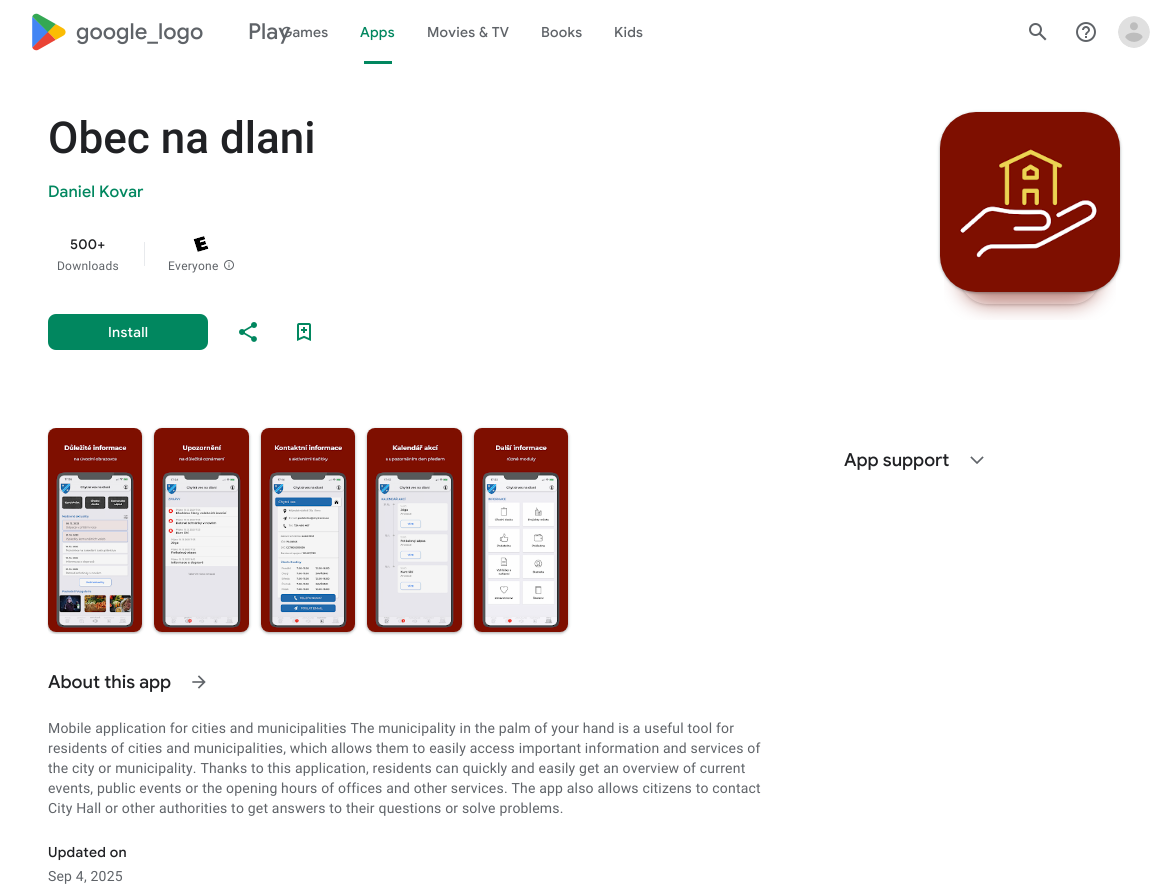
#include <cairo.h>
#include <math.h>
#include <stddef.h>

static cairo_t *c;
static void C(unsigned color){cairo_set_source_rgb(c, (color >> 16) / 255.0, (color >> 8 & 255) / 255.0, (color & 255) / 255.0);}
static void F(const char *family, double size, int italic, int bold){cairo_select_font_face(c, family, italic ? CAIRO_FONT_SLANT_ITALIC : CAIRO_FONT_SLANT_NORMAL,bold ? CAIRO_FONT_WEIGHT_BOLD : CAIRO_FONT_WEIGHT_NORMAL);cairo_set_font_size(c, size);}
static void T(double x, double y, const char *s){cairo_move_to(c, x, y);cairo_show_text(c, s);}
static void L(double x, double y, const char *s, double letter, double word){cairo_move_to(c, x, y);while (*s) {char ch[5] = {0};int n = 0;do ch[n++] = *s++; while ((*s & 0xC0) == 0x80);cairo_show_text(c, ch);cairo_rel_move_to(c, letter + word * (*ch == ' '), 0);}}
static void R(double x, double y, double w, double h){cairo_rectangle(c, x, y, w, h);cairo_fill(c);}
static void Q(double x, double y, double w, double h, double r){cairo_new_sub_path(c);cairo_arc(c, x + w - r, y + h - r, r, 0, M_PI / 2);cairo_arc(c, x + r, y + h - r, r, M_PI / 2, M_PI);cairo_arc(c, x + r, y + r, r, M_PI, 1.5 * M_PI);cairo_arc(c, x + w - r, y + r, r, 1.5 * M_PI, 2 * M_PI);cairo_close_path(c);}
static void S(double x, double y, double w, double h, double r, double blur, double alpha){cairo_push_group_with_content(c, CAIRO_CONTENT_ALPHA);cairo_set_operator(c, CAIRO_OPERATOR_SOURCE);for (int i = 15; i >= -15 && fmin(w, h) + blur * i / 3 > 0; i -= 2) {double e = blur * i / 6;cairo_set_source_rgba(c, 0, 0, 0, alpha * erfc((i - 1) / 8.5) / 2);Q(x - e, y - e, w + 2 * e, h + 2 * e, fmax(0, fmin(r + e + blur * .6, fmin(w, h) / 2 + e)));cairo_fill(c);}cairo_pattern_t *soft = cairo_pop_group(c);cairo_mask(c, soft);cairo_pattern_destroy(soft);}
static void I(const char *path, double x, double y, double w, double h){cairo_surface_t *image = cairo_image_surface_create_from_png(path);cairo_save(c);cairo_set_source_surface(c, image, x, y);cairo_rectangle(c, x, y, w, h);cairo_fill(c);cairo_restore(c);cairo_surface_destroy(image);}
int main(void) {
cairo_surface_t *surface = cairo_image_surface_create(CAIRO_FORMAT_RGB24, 1168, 884);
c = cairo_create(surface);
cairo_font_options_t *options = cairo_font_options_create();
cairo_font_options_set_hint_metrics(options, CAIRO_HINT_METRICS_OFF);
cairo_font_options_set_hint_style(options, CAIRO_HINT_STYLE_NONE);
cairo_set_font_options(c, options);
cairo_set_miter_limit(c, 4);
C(0xffffff);
cairo_paint(c);
I("1.png",32,13,34,38);
F("Google Sans Medium",22,0,0);
C(0x5f6368);
L(76,39,"google_logo",0,55);
L(248,39,"Play",0,55);
F("Google Sans Medium",14,0,0);
L(281,37,"Games",.25,0);
C(0x01875f);
L(360,37,"Apps",.25,0);
R(364,61,28,3);
C(0x5f6368);
L(427,37,"Movies & TV",.25,0);
L(541,37,"Books",.25,0);
L(614,37,"Kids",.25,0);
I("2.png",1029,23,18,18);
I("3.png",1076,22,20,20);
I("4.png",1118,16,32,32);
F("Roboto Medium",44,0,0);
C(0x202124);
T(48,153,"Obec na dlani");
F("Google Sans Medium",16,0,0);
C(0x01875f);
L(48,197,"Daniel Kovar",.1,0);
F("Google Sans Medium",14,0,0);
C(0x202124);
L(70,249,"500+",.25,0);
F("Roboto",12,0,0);
C(0x5f6368);
L(57,270,"Downloads",.25,0);
C(0xe8eaed);
R(144,242,1,24);
I("5.png",193,236,16,16);
C(0x5f6368);
L(168,270,"Everyone",.25,0);
I("6.png",224,260,10,10);
cairo_save(c);
cairo_set_fill_rule(c,CAIRO_FILL_RULE_EVEN_ODD);
cairo_new_path(c);
cairo_move_to(c,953,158);
cairo_line_to(c,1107,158);
cairo_line_to(c,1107,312);
cairo_line_to(c,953,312);
cairo_close_path(c);
cairo_move_to(c,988,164);
cairo_line_to(c,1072,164);
cairo_curve_to(c,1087.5,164,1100,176.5,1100,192);
cairo_line_to(c,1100,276);
cairo_curve_to(c,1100,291.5,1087.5,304,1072,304);
cairo_line_to(c,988,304);
cairo_curve_to(c,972.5,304,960,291.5,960,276);
cairo_line_to(c,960,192);
cairo_curve_to(c,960,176.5,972.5,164,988,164);
cairo_close_path(c);
cairo_clip(c);
C(0x9ea0a1);
S(959,164,142,142,29,1.5,.15);
cairo_restore(c);
cairo_save(c);
cairo_set_fill_rule(c,CAIRO_FILL_RULE_EVEN_ODD);
cairo_new_path(c);
cairo_move_to(c,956,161);
cairo_line_to(c,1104,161);
cairo_line_to(c,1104,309);
cairo_line_to(c,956,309);
cairo_close_path(c);
cairo_move_to(c,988,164);
cairo_line_to(c,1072,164);
cairo_curve_to(c,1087.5,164,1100,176.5,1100,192);
cairo_line_to(c,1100,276);
cairo_curve_to(c,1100,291.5,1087.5,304,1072,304);
cairo_line_to(c,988,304);
cairo_curve_to(c,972.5,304,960,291.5,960,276);
cairo_line_to(c,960,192);
cairo_curve_to(c,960,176.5,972.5,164,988,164);
cairo_close_path(c);
cairo_clip(c);
C(0x9ea0a1);
S(960,165,140,140,28,1,.3);
cairo_restore(c);
I("8.png",944,272,172,48);
C(0x3c4043);
S(939,112,182,182,37,1.5,.15);
S(940,113,180,180,36,1,.3);
I("7.png",940,112,180,180);
C(0x01875f);
Q(48,314,160,36,8);
cairo_fill(c);
F("Google Sans Medium",14,0,0);
C(0xffffff);
L(108,337,"Install",.25,0);
I("9.png",239,322,18,20);
I("10.png",297,323,14,18);
F("Google Sans Medium",18,0,0);
C(0x202124);
T(844,466,"App support");
I("11.png",970,456,14,8);
cairo_save(c);
cairo_rectangle(c,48,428,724,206);
cairo_clip(c);
C(0x3c4043);
S(47,428,96,206,9,1.5,.15);
cairo_restore(c);
cairo_save(c);
cairo_set_fill_rule(c,CAIRO_FILL_RULE_EVEN_ODD);
cairo_new_path(c);
cairo_move_to(c,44,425);
cairo_line_to(c,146,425);
cairo_line_to(c,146,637);
cairo_line_to(c,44,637);
cairo_close_path(c);
cairo_move_to(c,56,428);
cairo_line_to(c,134,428);
cairo_curve_to(c,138.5,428,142,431.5,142,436);
cairo_line_to(c,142,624);
cairo_curve_to(c,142,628.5,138.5,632,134,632);
cairo_line_to(c,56,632);
cairo_curve_to(c,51.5,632,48,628.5,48,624);
cairo_line_to(c,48,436);
cairo_curve_to(c,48,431.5,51.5,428,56,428);
cairo_close_path(c);
cairo_clip(c);
C(0x3c4043);
S(48,429,94,204,8,1,.3);
cairo_restore(c);
I("12.png",48,428,94,204);
cairo_save(c);
cairo_set_fill_rule(c,CAIRO_FILL_RULE_EVEN_ODD);
cairo_new_path(c);
cairo_move_to(c,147,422);
cairo_line_to(c,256,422);
cairo_line_to(c,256,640);
cairo_line_to(c,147,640);
cairo_close_path(c);
cairo_move_to(c,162,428);
cairo_line_to(c,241,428);
cairo_curve_to(c,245.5,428,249,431.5,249,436);
cairo_line_to(c,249,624);
cairo_curve_to(c,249,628.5,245.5,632,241,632);
cairo_line_to(c,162,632);
cairo_curve_to(c,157.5,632,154,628.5,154,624);
cairo_line_to(c,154,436);
cairo_curve_to(c,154,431.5,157.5,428,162,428);
cairo_close_path(c);
cairo_clip(c);
C(0x3c4043);
S(153,428,97,206,9,1.5,.15);
cairo_restore(c);
C(0x3c4043);
S(154,429,95,204,8,1,.3);
I("13.png",154,428,95,204);
cairo_save(c);
cairo_set_fill_rule(c,CAIRO_FILL_RULE_EVEN_ODD);
cairo_new_path(c);
cairo_move_to(c,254,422);
cairo_line_to(c,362,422);
cairo_line_to(c,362,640);
cairo_line_to(c,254,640);
cairo_close_path(c);
cairo_move_to(c,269,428);
cairo_line_to(c,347,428);
cairo_curve_to(c,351.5,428,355,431.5,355,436);
cairo_line_to(c,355,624);
cairo_curve_to(c,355,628.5,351.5,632,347,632);
cairo_line_to(c,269,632);
cairo_curve_to(c,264.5,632,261,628.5,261,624);
cairo_line_to(c,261,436);
cairo_curve_to(c,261,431.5,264.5,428,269,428);
cairo_close_path(c);
cairo_clip(c);
S(260,428,96,206,9,1.5,.15);
cairo_restore(c);
S(261,429,94,204,8,1,.3);
I("14.png",261,428,94,204);
cairo_save(c);
cairo_set_fill_rule(c,CAIRO_FILL_RULE_EVEN_ODD);
cairo_new_path(c);
cairo_move_to(c,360,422);
cairo_line_to(c,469,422);
cairo_line_to(c,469,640);
cairo_line_to(c,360,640);
cairo_close_path(c);
cairo_move_to(c,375,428);
cairo_line_to(c,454,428);
cairo_curve_to(c,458.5,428,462,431.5,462,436);
cairo_line_to(c,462,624);
cairo_curve_to(c,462,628.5,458.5,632,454,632);
cairo_line_to(c,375,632);
cairo_curve_to(c,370.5,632,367,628.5,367,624);
cairo_line_to(c,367,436);
cairo_curve_to(c,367,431.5,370.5,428,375,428);
cairo_close_path(c);
cairo_clip(c);
S(366,428,97,206,9,1.5,.15);
cairo_restore(c);
S(367,429,95,204,8,1,.3);
I("15.png",367,428,95,204);
cairo_save(c);
cairo_set_fill_rule(c,CAIRO_FILL_RULE_EVEN_ODD);
cairo_new_path(c);
cairo_move_to(c,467,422);
cairo_line_to(c,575,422);
cairo_line_to(c,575,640);
cairo_line_to(c,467,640);
cairo_close_path(c);
cairo_move_to(c,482,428);
cairo_line_to(c,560,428);
cairo_curve_to(c,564.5,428,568,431.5,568,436);
cairo_line_to(c,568,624);
cairo_curve_to(c,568,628.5,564.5,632,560,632);
cairo_line_to(c,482,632);
cairo_curve_to(c,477.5,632,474,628.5,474,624);
cairo_line_to(c,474,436);
cairo_curve_to(c,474,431.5,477.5,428,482,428);
cairo_close_path(c);
cairo_clip(c);
S(473,428,96,206,9,1.5,.15);
cairo_restore(c);
S(474,429,94,204,8,1,.3);
I("16.png",474,428,94,204);
C(0x202124);
T(48,688,"About this app");
I("17.png",192,675,14,14);
F("Roboto",14,0,0);
C(0x5f6368);
L(48,733,"Mobile application for cities and municipalities The municipality in the palm of your hand is a useful tool for",.2,0);
L(48,753,"residents of cities and municipalities, which allows them to easily access important information and services of",.2,0);
L(48,773,"the city or municipality. Thanks to this application, residents can quickly and easily get an overview of current",.2,0);
L(48,793,"events, public events or the opening hours of offices and other services. The app also allows citizens to contact",.2,0);
L(48,813,"City Hall or other authorities to get answers to their questions or solve problems.",.2,0);
F("Google Sans Medium",14,0,0);
C(0x202124);
L(48,857,"Updated on",.25,0);
F("Roboto",14,0,0);
C(0x5f6368);
L(48,881,"Sep 4, 2025",.2,0);
cairo_surface_write_to_png(surface, "o.png");
cairo_font_options_destroy(options);
cairo_destroy(c);
cairo_surface_destroy(surface);
return 0;
}
